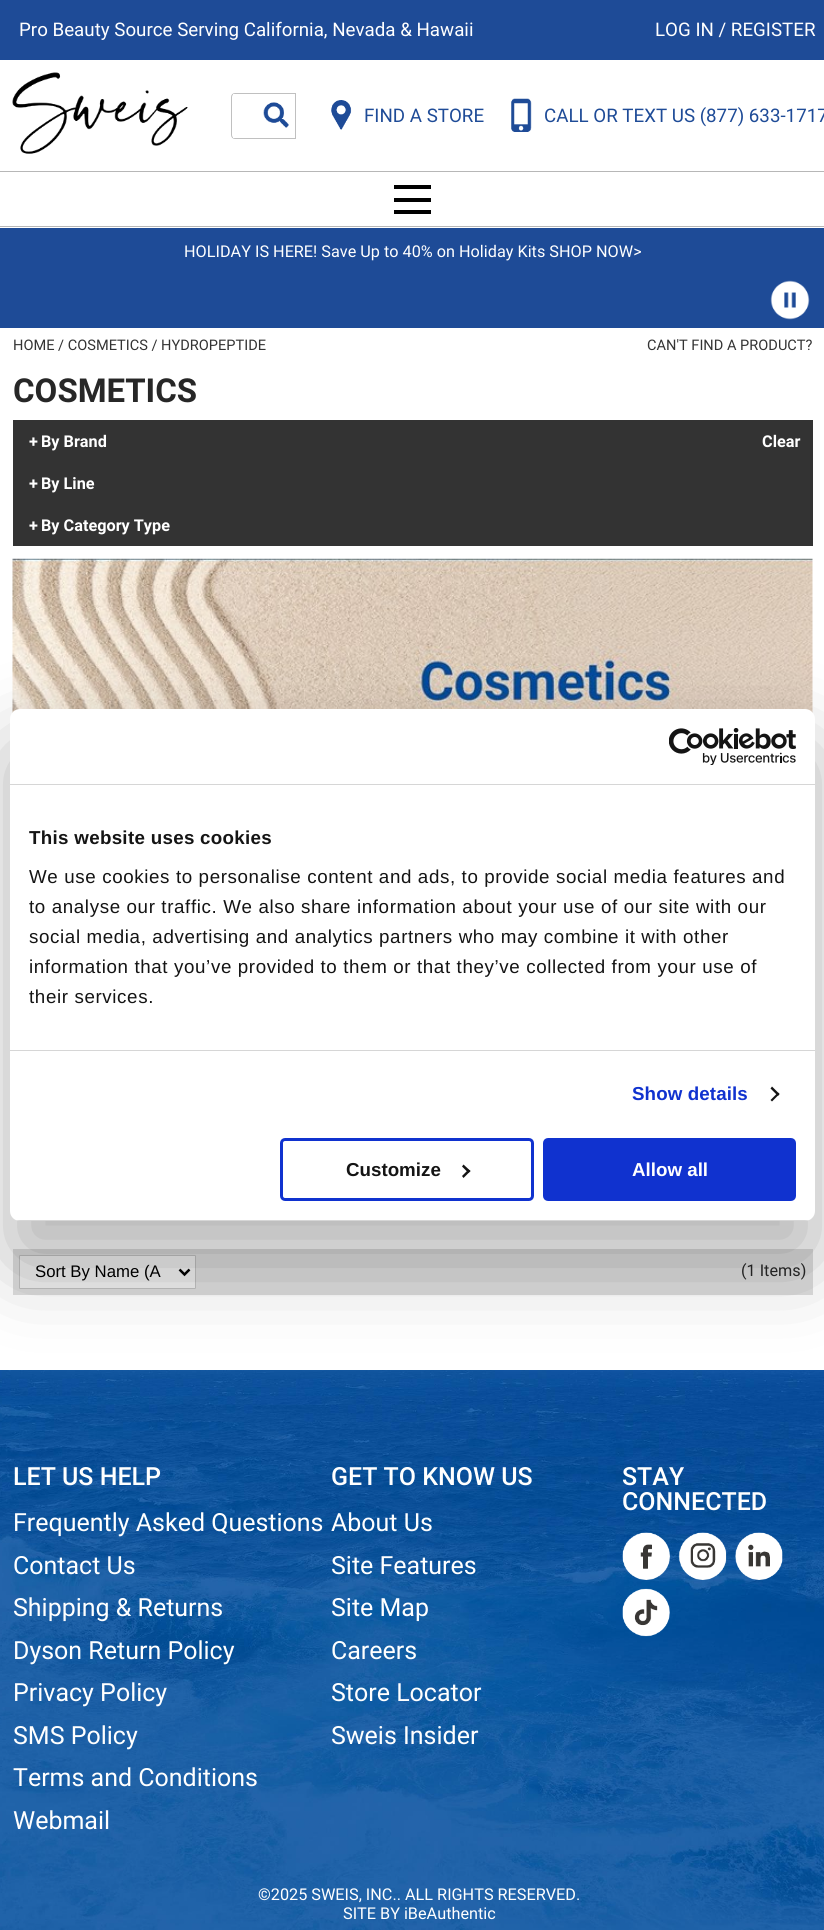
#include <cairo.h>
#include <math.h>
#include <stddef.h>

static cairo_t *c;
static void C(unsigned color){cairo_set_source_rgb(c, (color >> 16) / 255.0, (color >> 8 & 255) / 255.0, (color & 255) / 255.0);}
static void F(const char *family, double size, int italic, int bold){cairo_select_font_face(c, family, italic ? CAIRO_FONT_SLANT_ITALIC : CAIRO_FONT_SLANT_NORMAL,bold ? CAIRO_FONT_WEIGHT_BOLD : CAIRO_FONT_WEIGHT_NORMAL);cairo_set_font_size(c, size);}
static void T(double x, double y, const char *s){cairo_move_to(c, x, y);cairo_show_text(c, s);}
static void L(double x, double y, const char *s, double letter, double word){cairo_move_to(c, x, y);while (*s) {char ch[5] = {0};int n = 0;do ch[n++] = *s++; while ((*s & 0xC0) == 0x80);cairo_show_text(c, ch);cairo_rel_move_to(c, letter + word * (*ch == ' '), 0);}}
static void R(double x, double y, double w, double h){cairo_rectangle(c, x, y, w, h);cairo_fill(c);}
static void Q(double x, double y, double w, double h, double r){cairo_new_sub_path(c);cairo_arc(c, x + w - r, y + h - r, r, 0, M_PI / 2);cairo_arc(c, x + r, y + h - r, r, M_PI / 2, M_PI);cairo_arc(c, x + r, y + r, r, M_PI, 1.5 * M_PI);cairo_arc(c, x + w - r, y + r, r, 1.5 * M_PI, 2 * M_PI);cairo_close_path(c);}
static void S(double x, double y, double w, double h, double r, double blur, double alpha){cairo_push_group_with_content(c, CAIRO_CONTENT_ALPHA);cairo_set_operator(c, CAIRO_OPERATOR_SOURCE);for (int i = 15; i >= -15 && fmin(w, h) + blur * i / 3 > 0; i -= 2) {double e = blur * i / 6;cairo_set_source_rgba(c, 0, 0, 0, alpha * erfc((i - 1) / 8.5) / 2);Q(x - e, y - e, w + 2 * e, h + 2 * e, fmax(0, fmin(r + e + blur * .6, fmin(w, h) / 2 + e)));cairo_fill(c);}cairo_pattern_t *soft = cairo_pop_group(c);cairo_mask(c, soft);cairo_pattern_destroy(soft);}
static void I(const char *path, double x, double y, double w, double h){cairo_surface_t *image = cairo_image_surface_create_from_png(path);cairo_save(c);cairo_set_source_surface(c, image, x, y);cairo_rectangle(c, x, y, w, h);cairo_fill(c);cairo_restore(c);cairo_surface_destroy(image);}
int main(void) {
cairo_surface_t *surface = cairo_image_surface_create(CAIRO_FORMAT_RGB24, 824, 1930);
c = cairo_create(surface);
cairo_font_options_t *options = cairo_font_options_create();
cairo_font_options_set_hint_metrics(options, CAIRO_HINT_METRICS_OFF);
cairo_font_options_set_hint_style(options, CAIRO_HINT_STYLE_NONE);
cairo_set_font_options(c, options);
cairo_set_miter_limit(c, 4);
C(0xffffff);
cairo_paint(c);
C(0x1e4b97);
R(0,0,824,60);
F("Roboto",18.75,0,0);
C(0xffffff);
T(19,36,"Pro Beauty Source Serving California, Nevada & Hawaii");
T(655,36,"LOG IN / REGISTER");
I("1.png",12,72,176,82);
cairo_new_path(c);
cairo_move_to(c,235,93.5);
cairo_line_to(c,295.5,93.5);
cairo_line_to(c,295.5,138.5);
cairo_line_to(c,235,138.5);
cairo_curve_to(c,233,138.5,231.5,137,231.5,135);
cairo_line_to(c,231.5,97);
cairo_curve_to(c,231.5,95,233,93.5,235,93.5);
cairo_close_path(c);
C(0xc0c0c0);
cairo_set_line_width(c,1);
cairo_stroke(c);
C(0xffffff);
R(233,94,2,44);
I("2.png",263,102,26,26);
I("3.png",331,100,21,30);
C(0x1e4b97);
T(364,122,"FIND A STORE");
I("4.png",511,98,21,34);
T(544,122,"CALL OR TEXT US (877) 633-1717");
C(0xb7b7b7);
R(0,171,824,1);
R(0,226,824,1);
C(0x000000);
R(394,185,37,4);
R(394,198,37,4);
R(394,210,37,4);
C(0x1e4b97);
R(0,228,824,100);
F("Roboto",16.25,0,0);
C(0xffffff);
T(184,257,"HOLIDAY IS HERE! Save Up to 40% on Holiday Kits SHOP NOW>");
I("5.png",770,280,40,40);
F("Roboto",14.6,0,0);
C(0x333333);
T(13,350,"HOME / COSMETICS / HYDROPEPTIDE");
T(647,350,"CAN'T FIND A PRODUCT?");
F("Roboto",33,0,1);
C(0x272727);
T(13,402,"COSMETICS");
C(0x333333);
R(13,420,800,126);
F("Roboto",16.25,0,1);
C(0xffffff);
T(29,447,"+");
T(41,447,"By Brand");
T(762,447,"Clear");
T(29,489,"+");
T(41,489,"By Line");
T(29,531,"+");
T(41,531,"By Category Type");
I("6.png",12,558,801,155);
C(0xdddddd);
R(13,1249,800,46);
C(0xefefef);
Q(19.5,1255.5,176,33,.5);
cairo_fill_preserve(c);
C(0xc0c0c0);
cairo_stroke(c);
cairo_new_path(c);
cairo_move_to(c,179.5,1269.5);
cairo_line_to(c,184.5,1274.5);
cairo_line_to(c,189.5,1269.5);
C(0x000000);
cairo_set_line_width(c,2.5);
cairo_stroke(c);
F("Liberation Sans",16.75,0,0);
T(35,1277,"Sort By Name (A");
F("Roboto",16.25,0,0);
C(0x272727);
T(741,1276,"(1 Items)");
I("7.png",0,1370,824,560);
F("Roboto Medium",25,0,0);
C(0xffffff);
T(13,1485,"LET US HELP");
F("Roboto",25,0,0);
T(13,1531,"Frequently Asked Questions");
T(13,1574,"Contact Us");
T(13,1616,"Shipping & Returns");
T(13,1659,"Dyson Return Policy");
T(13,1701,"Privacy Policy");
T(13,1744,"SMS Policy");
T(13,1786,"Terms and Conditions");
T(13,1829,"Webmail");
F("Roboto Medium",25,0,0);
T(331,1485,"GET TO KNOW US");
F("Roboto",25,0,0);
T(331,1531,"About Us");
T(331,1574,"Site Features");
T(331,1616,"Site Map");
T(331,1659,"Careers");
T(331,1701,"Store Locator");
T(331,1744,"Sweis Insider");
F("Roboto Medium",25,0,0);
T(622,1485,"STAY");
T(622,1510,"CONNECTED");
I("8.png",622,1532,48,48);
I("9.png",678,1532,49,48);
I("10.png",735,1532,48,48);
I("11.png",622,1588,48,49);
F("Roboto",16.25,0,0);
T(258,1900,"©2025 SWEIS, INC.. ALL RIGHTS RESERVED.");
T(343,1919,"SITE BY iBeAuthentic");
C(0x000000);
S(10,749,805,512,10,42.5,.3);
C(0xffffff);
Q(10,709,805,512,10);
cairo_fill(c);
C(0xd6d6d6);
R(10,784,805,1);
I("12.png",669,728,127,37);
R(10,1050,805,1);
F("Liberation Sans",18.75,0,1);
C(0x141414);
L(29,844,"This website uses cookies",.3,0);
F("Liberation Sans",18.75,0,0);
L(29,883,"We use cookies to personalise content and ads, to provide social media features and",.62,0);
L(29,913,"to analyse our traffic. We also share information about your use of our site with our",.62,0);
L(29,943,"social media, advertising and analytics partners who may combine it with other",.62,0);
L(29,973,"information that you’ve provided to them or that they’ve collected from your use of",.62,0);
L(29,1003,"their services.",.62,0);
F("Liberation Sans",18.75,0,1);
C(0x1032cf);
L(632,1100,"Show details",.1,0);
C(0x141414);
cairo_new_path(c);
cairo_move_to(c,772,1086.5);
cairo_line_to(c,779.5,1094);
cairo_line_to(c,778,1096);
cairo_line_to(c,770.5,1088.5);
cairo_close_path(c);
cairo_fill(c);
cairo_new_path(c);
cairo_move_to(c,778,1092.5);
cairo_line_to(c,779.5,1094);
cairo_line_to(c,772,1101.5);
cairo_line_to(c,770.5,1100);
cairo_close_path(c);
cairo_fill(c);
cairo_save(c);
Q(10,709,805,512,10);
cairo_clip(c);
C(0xd6d6d6);
R(10,1220,805,1);
cairo_restore(c);
Q(281.5,1139.5,251,60,3.5);
C(0x1032cf);
cairo_set_line_width(c,3);
cairo_stroke(c);
C(0x141414);
T(346,1176,"Customize");
cairo_new_path(c);
cairo_move_to(c,463.5,1164.5);
cairo_line_to(c,470.5,1171);
cairo_line_to(c,468.5,1173);
cairo_line_to(c,462,1166.5);
cairo_close_path(c);
cairo_fill(c);
cairo_new_path(c);
cairo_move_to(c,468.5,1169.5);
cairo_line_to(c,470.5,1171);
cairo_line_to(c,463.5,1178);
cairo_line_to(c,462,1176);
cairo_close_path(c);
cairo_fill(c);
C(0x1032cf);
Q(544.5,1139.5,250,60,3.5);
cairo_fill_preserve(c);
cairo_stroke(c);
C(0xffffff);
T(632,1176,"Allow all");
cairo_surface_write_to_png(surface, "o.png");
cairo_font_options_destroy(options);
cairo_destroy(c);
cairo_surface_destroy(surface);
return 0;
}
